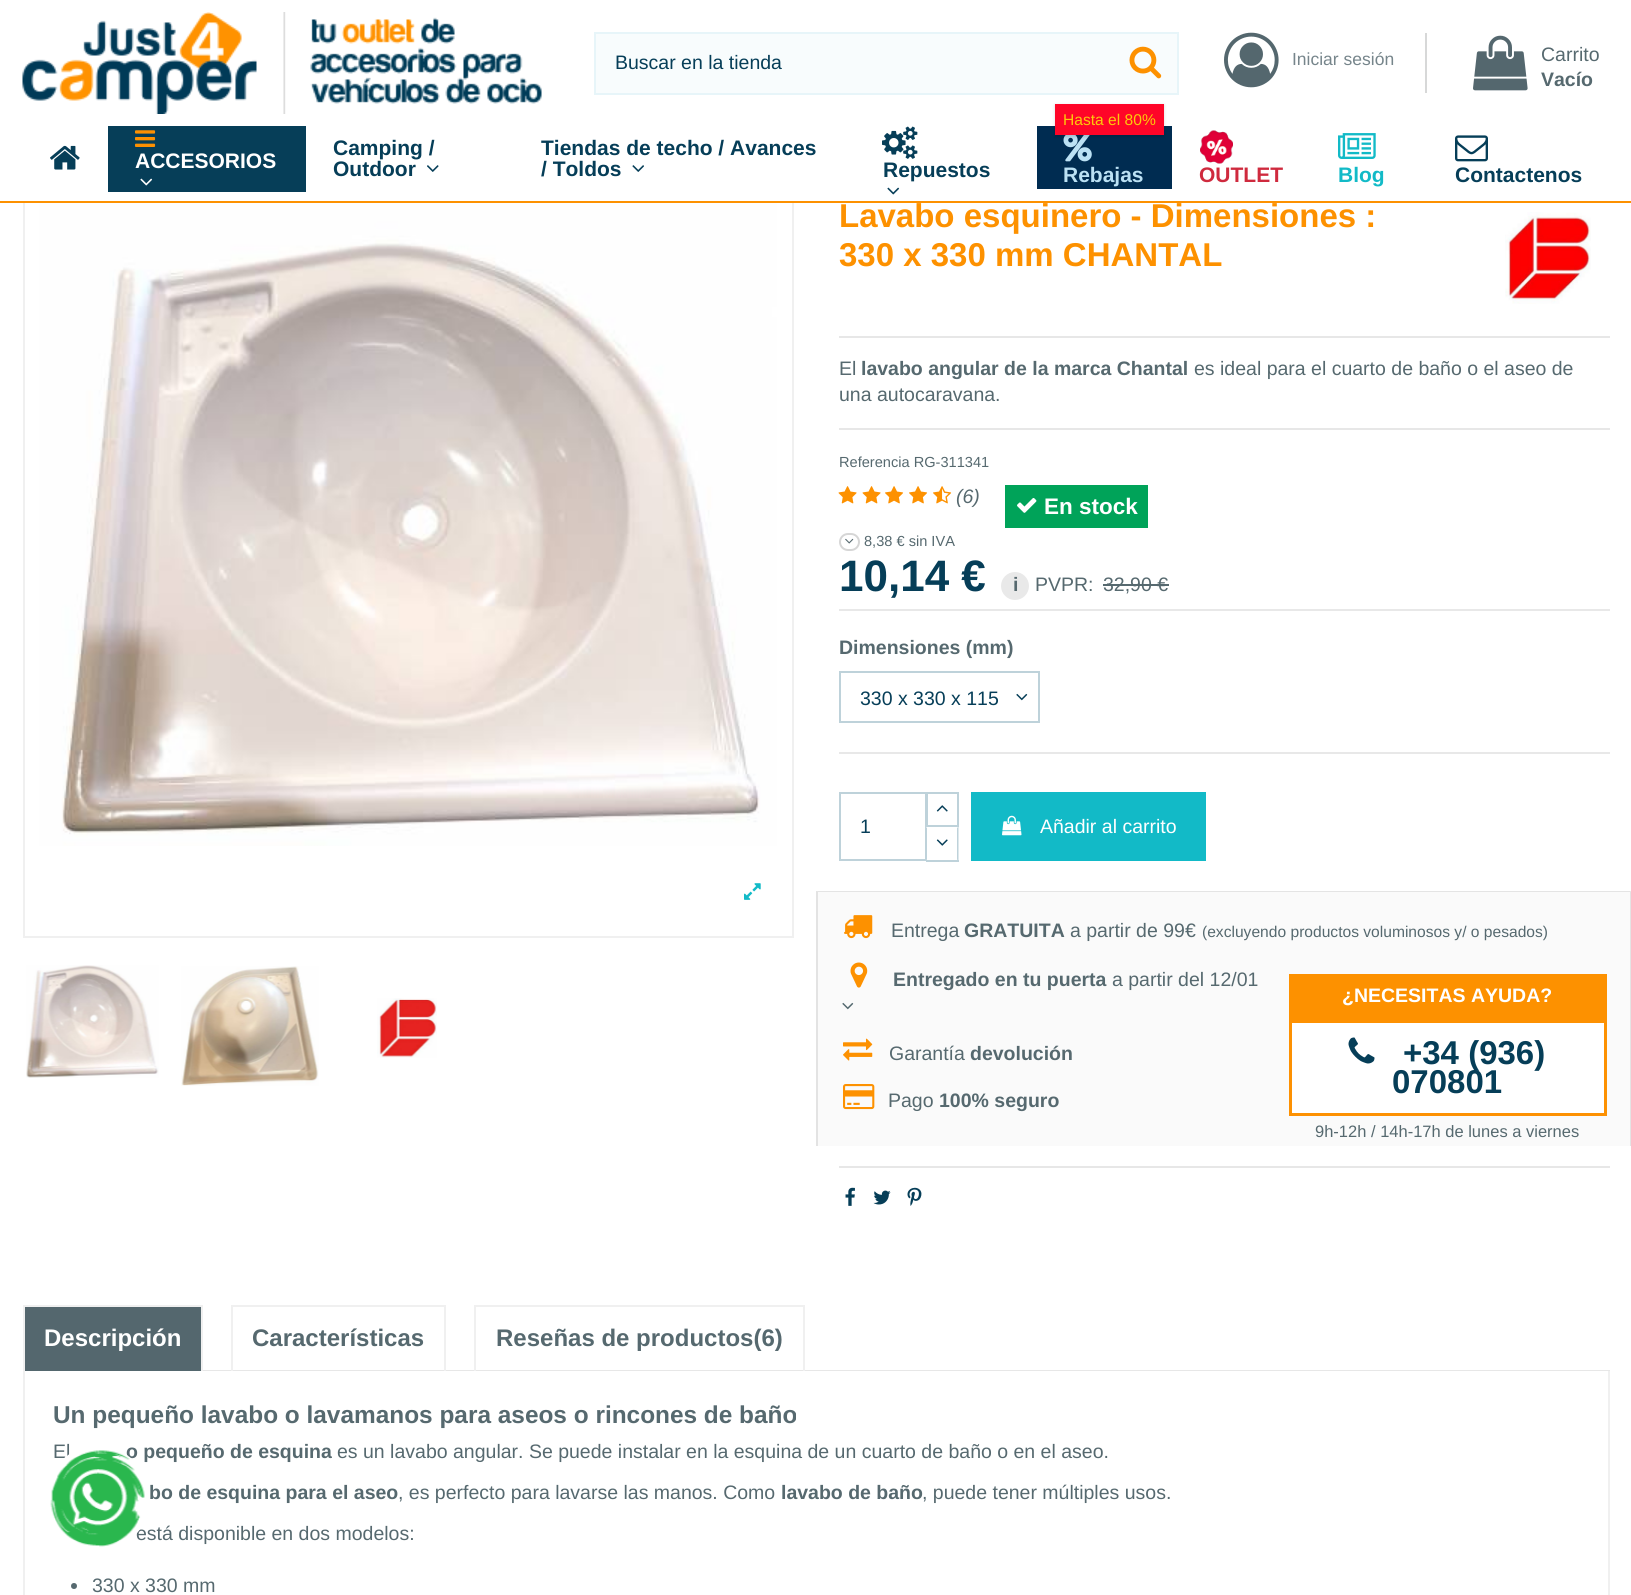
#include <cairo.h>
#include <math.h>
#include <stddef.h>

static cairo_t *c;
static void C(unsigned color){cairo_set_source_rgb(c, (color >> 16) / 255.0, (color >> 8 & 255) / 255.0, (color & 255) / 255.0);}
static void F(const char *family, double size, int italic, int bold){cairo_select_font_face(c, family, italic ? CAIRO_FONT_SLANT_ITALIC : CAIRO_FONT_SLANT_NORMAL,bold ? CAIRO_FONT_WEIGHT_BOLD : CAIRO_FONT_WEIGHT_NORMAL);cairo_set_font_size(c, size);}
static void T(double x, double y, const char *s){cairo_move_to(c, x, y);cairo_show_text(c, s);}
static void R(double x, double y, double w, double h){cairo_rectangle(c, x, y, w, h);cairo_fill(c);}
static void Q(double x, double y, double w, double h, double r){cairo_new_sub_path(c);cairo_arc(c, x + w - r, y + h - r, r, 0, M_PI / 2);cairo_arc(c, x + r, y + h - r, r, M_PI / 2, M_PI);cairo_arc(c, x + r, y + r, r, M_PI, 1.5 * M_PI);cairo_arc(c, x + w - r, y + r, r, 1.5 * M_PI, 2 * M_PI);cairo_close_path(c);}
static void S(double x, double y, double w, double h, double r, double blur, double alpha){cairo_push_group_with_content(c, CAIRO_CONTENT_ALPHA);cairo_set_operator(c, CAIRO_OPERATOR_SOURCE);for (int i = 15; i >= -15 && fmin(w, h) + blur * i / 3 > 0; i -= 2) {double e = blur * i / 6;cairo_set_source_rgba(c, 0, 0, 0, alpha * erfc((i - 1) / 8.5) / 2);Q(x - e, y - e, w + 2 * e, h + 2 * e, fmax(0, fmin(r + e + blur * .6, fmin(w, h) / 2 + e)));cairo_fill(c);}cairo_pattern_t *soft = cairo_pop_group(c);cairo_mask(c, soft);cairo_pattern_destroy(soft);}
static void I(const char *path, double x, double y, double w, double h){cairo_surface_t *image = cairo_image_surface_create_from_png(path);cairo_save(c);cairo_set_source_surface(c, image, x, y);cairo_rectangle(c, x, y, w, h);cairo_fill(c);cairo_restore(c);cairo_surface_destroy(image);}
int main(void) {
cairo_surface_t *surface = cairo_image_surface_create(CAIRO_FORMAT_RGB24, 1631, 1595);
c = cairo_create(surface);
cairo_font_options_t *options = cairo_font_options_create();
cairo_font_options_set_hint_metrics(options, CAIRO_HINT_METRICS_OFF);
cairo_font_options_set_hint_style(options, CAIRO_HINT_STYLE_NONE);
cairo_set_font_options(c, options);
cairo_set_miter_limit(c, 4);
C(0xffffff);
cairo_paint(c);
cairo_rectangle(c,24,198,769,739);
C(0xf0f0f0);
cairo_stroke(c);
C(0xffffff);
R(23,197,771,4);
C(0xfd9100);
R(0,201,1631,2);
I("1.png",22,12,520,102);
C(0xf8fcfd);
cairo_rectangle(c,595,33,583,61);
cairo_fill_preserve(c);
C(0xe7f5f9);
cairo_stroke(c);
F("Liberation Sans",19.5,0,0);
C(0x063e58);
T(615,69,"Buscar en la tienda");
I("2.png",1129,46,33,33);
C(0xd7d8d8);
R(1425,33,2,60);
I("3.png",1224,32,55,56);
F("Liberation Sans",17.5,0,0);
C(0x76858b);
T(1292,65,"Iniciar sesión");
I("4.png",1473,35,55,56);
F("Liberation Sans",19.5,0,0);
C(0x56696f);
T(1541,61,"Carrito");
F("Liberation Sans",19.5,0,1);
T(1541,86,"Vacío");
I("5.png",50,145,30,25);
C(0x063e58);
R(108,126,198,66);
I("6.png",135,130,21,17);
F("Liberation Sans",21,0,1);
C(0xffffff);
T(135,168,"ACCESORIOS");
I("7.png",140,178,13,8);
C(0x063e58);
T(333,155,"Camping /");
T(333,176,"Outdoor");
I("8.png",427,165,12,7);
T(541,155,"Tiendas de techo / Avances");
T(541,176,"/ Toldos");
I("9.png",632,165,12,7);
I("10.png",882,126,36,33);
T(883,177,"Repuestos");
I("11.png",887,187,13,8);
C(0x002c51);
R(1037,126,135,63);
I("12.png",1063,135,29,27);
C(0x000000);
S(1055,105,109,32,0,1.5,.15);
C(0xff0528);
R(1055,104,109,31);
F("Liberation Sans",15.6,0,0);
C(0xfcc909);
T(1063,125,"Hasta el 80%");
F("Liberation Sans",21,0,1);
C(0xbbe1f4);
T(1063,182,"Rebajas");
I("13.png",1200,130,33,34);
C(0xcf2a3e);
T(1199,182,"OUTLET");
I("14.png",1338,133,38,26);
C(0x12bac7);
T(1338,182,"Blog");
I("15.png",1455,135,33,27);
C(0x063e58);
T(1455,182,"Contactenos");
I("16.png",39,203,738,643);
I("17.png",744,883,17,17);
I("18.png",26,965,133,113);
I("19.png",181,966,138,120);
I("20.png",377,998,60,60);
C(0xe7e7e7);
R(839,336,771,2);
F("Liberation Sans",33,0,1);
C(0xfd9100);
T(839,227,"Lavabo esquinero - Dimensiones :");
T(839,266,"330 x 330 mm CHANTAL");
I("21.png",1505,212,86,92);
F("Liberation Sans",19.5,0,0);
C(0x56696f);
T(839,375,"El");
F("Liberation Sans",19.5,0,1);
T(861,375,"lavabo angular de la marca Chantal");
F("Liberation Sans",19.5,0,0);
T(1194,375,"es ideal para el cuarto de baño o el aseo de");
T(839,401,"una autocaravana.");
C(0xe7e7e7);
R(839,428,771,2);
F("Liberation Sans",14.6,0,0);
C(0x56696f);
T(839,467,"Referencia RG-311341");
I("22.png",838,486,19,18);
I("22.png",862,486,19,18);
I("23.png",885,486,19,18);
I("23.png",909,486,19,18);
I("24.png",933,486,19,18);
F("Liberation Sans",19.5,1,0);
T(956,503,"(6)");
C(0x00a359);
R(1005,485,143,43);
I("25.png",1017,498,20,15);
F("Liberation Sans",22.5,0,1);
C(0xffffff);
T(1044,514,"En stock");
Q(840,534,19,16,8);
C(0xd6d6d6);
cairo_stroke(c);
I("26.png",845,538,9,6);
F("Liberation Sans",14.6,0,0);
C(0x56696f);
T(864,546,"8,38 € sin IVA");
F("Liberation Sans",44,0,1);
C(0x063e58);
T(839,591,"10,14 €");
C(0xe9e9e9);
cairo_new_path(c);
cairo_arc(c,1015,586,14,0,2 * M_PI);
cairo_fill(c);
F("Liberation Sans",19.5,0,1);
C(0x56696f);
T(1013,591,"i");
F("Liberation Sans",19.5,0,0);
T(1035,591,"PVPR:");
T(1103,591,"32,90 €");
R(1103,584,66,2);
C(0xe8e8e8);
R(839,609,771,2);
R(839,752,771,2);
F("Liberation Sans",19.5,0,1);
C(0x56696f);
T(839,654,"Dimensiones (mm)");
I("27.png",1016,693,12,8);
cairo_rectangle(c,840,672,199,50);
C(0xbed2da);
cairo_stroke(c);
F("Liberation Sans",19.5,0,0);
C(0x063e58);
T(860,705,"330 x 330 x 115");
cairo_rectangle(c,840,793,86,67);
C(0xbed2da);
cairo_stroke(c);
C(0x063e58);
T(860,833,"1");
cairo_rectangle(c,927,793,31,33);
C(0xbed2da);
cairo_stroke(c);
I("28.png",936,805,12,7);
C(0xffffff);
R(926,827,1,33);
C(0xbed2da);
cairo_new_path(c);
cairo_move_to(c,958.5,826.5);
cairo_line_to(c,958.5,861);
cairo_line_to(c,957,859.5);
cairo_line_to(c,957,828);
cairo_close_path(c);
cairo_fill(c);
R(926,860,33,2);
cairo_new_path(c);
cairo_move_to(c,925.5,861);
cairo_line_to(c,925.5,826.5);
cairo_line_to(c,927,828);
cairo_line_to(c,927,859.5);
cairo_close_path(c);
cairo_fill(c);
I("29.png",936,839,12,7);
C(0x12bac7);
R(971,792,235,69);
I("30.png",1002,815,20,21);
C(0xffffff);
T(1040,833,"Añadir al carrito");
C(0xfafafa);
R(816,891,815,255);
C(0xe4e4e4);
cairo_new_path(c);
cairo_move_to(c,816,891);
cairo_line_to(c,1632,891);
cairo_line_to(c,1630,892);
cairo_line_to(c,818,892);
cairo_close_path(c);
cairo_fill(c);
cairo_new_path(c);
cairo_move_to(c,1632,891);
cairo_line_to(c,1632,1146);
cairo_line_to(c,1630,1146);
cairo_line_to(c,1630,892);
cairo_close_path(c);
cairo_fill(c);
cairo_set_source_rgba(c,0.631,0.631,0.631,0.25);
cairo_new_path(c);
cairo_move_to(c,816,1146);
cairo_line_to(c,816,891);
cairo_line_to(c,818,892);
cairo_line_to(c,818,1146);
cairo_close_path(c);
cairo_fill(c);
I("31.png",844,915,29,24);
C(0x56696f);
T(891,937,"Entrega");
F("Liberation Sans",19.5,0,1);
T(964,937,"GRATUITA");
F("Liberation Sans",19.5,0,0);
T(1070,937,"a partir de 99€");
F("Liberation Sans",15.6,0,0);
T(1202,937,"(excluyendo productos voluminosos y/ o pesados)");
I("32.png",850,962,18,26);
F("Liberation Sans",19.5,0,1);
T(893,986,"Entregado en tu puerta");
F("Liberation Sans",19.5,0,0);
T(1112,986,"a partir del 12/01");
I("33.png",842,1002,12,8);
I("34.png",843,1038,30,23);
T(889,1060,"Garantía");
F("Liberation Sans",19.5,0,1);
T(970,1060,"devolución");
I("35.png",843,1084,32,26);
F("Liberation Sans",19.5,0,0);
T(888,1107,"Pago");
F("Liberation Sans",19.5,0,1);
T(939,1107,"100% seguro");
C(0xfd9100);
R(1289,974,318,46);
C(0xffffff);
T(1342,1002,"¿NECESITAS AYUDA?");
cairo_rectangle(c,1290.5,1021.5,315,93);
cairo_fill_preserve(c);
C(0xfd9102);
cairo_set_line_width(c,3);
cairo_stroke(c);
I("36.png",1348,1037,27,27);
F("Liberation Sans",33,0,1);
C(0x063e58);
T(1403,1064,"+34 (936)");
T(1392,1093,"070801");
F("Liberation Sans",16.5,0,0);
C(0x56696f);
T(1315,1137,"9h-12h / 14h-17h de lunes a viernes");
C(0xe7e7e7);
R(839,1166,771,2);
I("37.png",845,1187,10,19);
I("38.png",873,1190,18,15);
I("39.png",907,1187,15,19);
R(203,1370,1407,1);
C(0x54676e);
R(25,1307,176,64);
C(0xf0f0f0);
R(23,1305,180,2);
R(201,1305,2,66);
R(23,1305,2,66);
F("Liberation Sans",24,0,1);
C(0xffffff);
T(44,1346,"Descripción");
C(0xf0f0f0);
R(231,1305,215,2);
R(444,1305,2,66);
R(231,1305,2,66);
C(0x56696f);
T(252,1346,"Características");
C(0xf0f0f0);
R(474,1305,330,2);
R(803,1305,2,66);
R(474,1305,2,66);
C(0x56696f);
T(496,1346,"Reseñas de productos(6)");
C(0xf0f0f0);
R(1608,1371,2,224);
R(23,1371,2,224);
F("Liberation Sans",24.4,0,1);
C(0x56696f);
T(53,1423,"Un pequeño lavabo o lavamanos para aseos o rincones de baño");
F("Liberation Sans",19.5,0,0);
T(53,1458,"El");
F("Liberation Sans",19.5,0,1);
T(126,1458,"o pequeño de esquina");
F("Liberation Sans",19.5,0,0);
T(337,1458,"es un lavabo angular. Se puede instalar en la esquina de un cuarto de baño o en el aseo.");
F("Liberation Sans",19.5,0,1);
T(149,1499,"bo de esquina para el aseo");
F("Liberation Sans",19.5,0,0);
T(398,1499,", es perfecto para lavarse las manos. Como");
F("Liberation Sans",19.5,0,1);
T(781,1499,"lavabo de baño");
F("Liberation Sans",19.5,0,0);
T(922,1499,", puede tener múltiples usos.");
T(136,1540,"está disponible en dos modelos:");
cairo_new_path(c);
cairo_arc(c,74,1586,3,0,2 * M_PI);
cairo_fill(c);
T(92,1592,"330 x 330 mm");
C(0xffffff);
cairo_new_path(c);
cairo_arc(c,97.5,1498.5,52.5,0,2 * M_PI);
cairo_fill(c);
I("40.png",50,1450,95,97);
cairo_surface_write_to_png(surface, "o.png");
cairo_font_options_destroy(options);
cairo_destroy(c);
cairo_surface_destroy(surface);
return 0;
}
